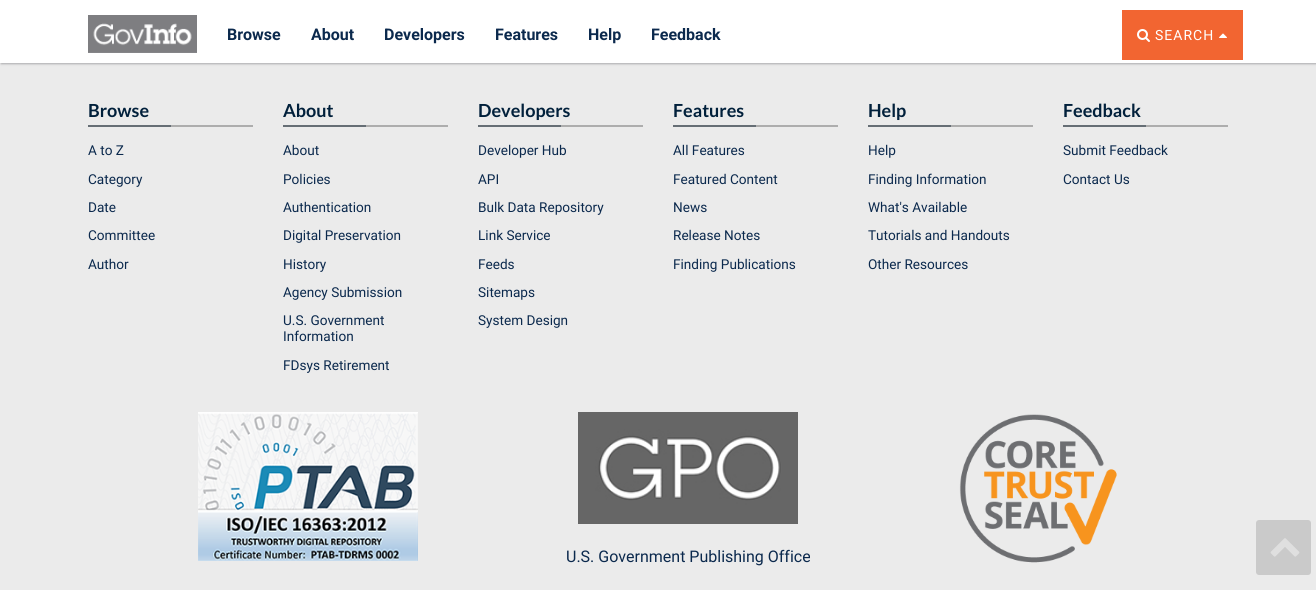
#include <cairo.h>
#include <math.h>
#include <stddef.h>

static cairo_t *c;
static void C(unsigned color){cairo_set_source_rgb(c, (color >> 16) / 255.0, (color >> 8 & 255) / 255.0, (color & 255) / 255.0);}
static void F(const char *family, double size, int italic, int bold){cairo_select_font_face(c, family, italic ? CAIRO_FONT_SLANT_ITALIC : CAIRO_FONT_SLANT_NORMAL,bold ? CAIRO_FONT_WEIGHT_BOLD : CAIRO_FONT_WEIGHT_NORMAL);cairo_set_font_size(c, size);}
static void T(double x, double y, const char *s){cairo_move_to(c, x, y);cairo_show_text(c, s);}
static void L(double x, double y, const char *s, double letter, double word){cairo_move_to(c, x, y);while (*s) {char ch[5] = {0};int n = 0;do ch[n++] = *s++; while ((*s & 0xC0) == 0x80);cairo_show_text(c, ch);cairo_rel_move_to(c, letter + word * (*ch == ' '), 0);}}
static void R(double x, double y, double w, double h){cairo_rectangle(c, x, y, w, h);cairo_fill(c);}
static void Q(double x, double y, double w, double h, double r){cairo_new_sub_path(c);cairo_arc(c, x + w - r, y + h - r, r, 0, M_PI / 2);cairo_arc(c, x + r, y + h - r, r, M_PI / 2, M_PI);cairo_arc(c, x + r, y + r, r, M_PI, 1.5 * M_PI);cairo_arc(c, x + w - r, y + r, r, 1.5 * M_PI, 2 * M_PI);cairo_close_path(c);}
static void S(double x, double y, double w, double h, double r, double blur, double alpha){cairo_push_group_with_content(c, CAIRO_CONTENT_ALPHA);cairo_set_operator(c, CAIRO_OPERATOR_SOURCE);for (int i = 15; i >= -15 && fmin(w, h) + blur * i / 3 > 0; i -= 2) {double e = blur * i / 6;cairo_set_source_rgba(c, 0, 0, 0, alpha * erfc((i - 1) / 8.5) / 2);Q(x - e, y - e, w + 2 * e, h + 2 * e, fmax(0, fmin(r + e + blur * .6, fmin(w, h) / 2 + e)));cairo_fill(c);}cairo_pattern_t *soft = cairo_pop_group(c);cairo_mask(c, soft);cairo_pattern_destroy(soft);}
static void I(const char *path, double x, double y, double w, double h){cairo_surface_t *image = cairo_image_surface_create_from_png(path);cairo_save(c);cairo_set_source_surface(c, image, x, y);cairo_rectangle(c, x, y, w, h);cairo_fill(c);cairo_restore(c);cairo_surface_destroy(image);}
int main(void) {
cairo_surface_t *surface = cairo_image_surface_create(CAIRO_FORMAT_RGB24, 1316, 590);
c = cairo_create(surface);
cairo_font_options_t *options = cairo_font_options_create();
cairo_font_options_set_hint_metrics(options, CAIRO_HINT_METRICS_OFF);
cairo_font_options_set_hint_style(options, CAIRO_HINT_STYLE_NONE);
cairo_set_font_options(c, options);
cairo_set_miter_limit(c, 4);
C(0xebebeb);
cairo_paint(c);
C(0xacacae);
S(1,1,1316,63,0,1,1);
C(0xffffff);
R(0,0,1316,63);
I("1.png",88,15,109,38);
F("Roboto",16,0,1);
C(0x0b294d);
T(227,40,"Browse");
T(311,40,"About");
T(384,40,"Developers");
T(495,40,"Features");
T(588,40,"Help");
T(651,40,"Feedback");
C(0xf26531);
R(1122,10,121,50);
I("2.png",1137,29,13,13);
F("Roboto",14,0,0);
C(0xffffff);
L(1155,40,"SEARCH",1,0);
I("3.png",1219,33,8,5);
F("Lato",18,0,1);
C(0x01203b);
T(88,117,"Browse");
C(0xadadad);
R(171,125,82,2);
C(0x666e75);
R(88,125,83,2);
F("Roboto",13.6,0,0);
C(0x0b294d);
T(88,155,"A to Z");
T(88,184,"Category");
T(88,212,"Date");
T(88,240,"Committee");
T(88,269,"Author");
F("Lato",18,0,1);
C(0x01203b);
T(283,117,"About");
C(0xadadad);
R(366,125,82,2);
C(0x666e75);
R(283,125,83,2);
F("Roboto",13.6,0,0);
C(0x0b294d);
T(283,155,"About");
T(283,184,"Policies");
T(283,212,"Authentication");
T(283,240,"Digital Preservation");
T(283,269,"History");
T(283,297,"Agency Submission");
T(283,325,"U.S. Government");
T(283,341,"Information");
T(283,370,"FDsys Retirement");
F("Lato",18,0,1);
C(0x01203b);
T(478,117,"Developers");
C(0xadadad);
R(561,125,82,2);
C(0x666e75);
R(478,125,83,2);
F("Roboto",13.6,0,0);
C(0x0b294d);
T(478,155,"Developer Hub");
T(478,184,"API");
T(478,212,"Bulk Data Repository");
T(478,240,"Link Service");
T(478,269,"Feeds");
T(478,297,"Sitemaps");
T(478,325,"System Design");
F("Lato",18,0,1);
C(0x01203b);
T(673,117,"Features");
C(0xadadad);
R(756,125,82,2);
C(0x666e75);
R(673,125,83,2);
F("Roboto",13.6,0,0);
C(0x0b294d);
T(673,155,"All Features");
T(673,184,"Featured Content");
T(673,212,"News");
T(673,240,"Release Notes");
T(673,269,"Finding Publications");
F("Lato",18,0,1);
C(0x01203b);
T(868,117,"Help");
C(0xadadad);
R(951,125,82,2);
C(0x666e75);
R(868,125,83,2);
F("Roboto",13.6,0,0);
C(0x0b294d);
T(868,155,"Help");
T(868,184,"Finding Information");
T(868,212,"What's Available");
T(868,240,"Tutorials and Handouts");
T(868,269,"Other Resources");
F("Lato",18,0,1);
C(0x01203b);
T(1063,117,"Feedback");
C(0xadadad);
R(1146,125,82,2);
C(0x666e75);
R(1063,125,83,2);
F("Roboto",13.6,0,0);
C(0x0b294d);
T(1063,155,"Submit Feedback");
T(1063,184,"Contact Us");
I("4.png",198,412,220,149);
I("5.png",578,412,220,112);
F("Roboto",16,0,0);
T(566,562,"U.S. Government Publishing Office");
I("6.png",959,414,158,149);
C(0xcacaca);
Q(1256,520,55,55,3);
cairo_fill(c);
I("7.png",1270,538,30,19);
cairo_surface_write_to_png(surface, "o.png");
cairo_font_options_destroy(options);
cairo_destroy(c);
cairo_surface_destroy(surface);
return 0;
}
